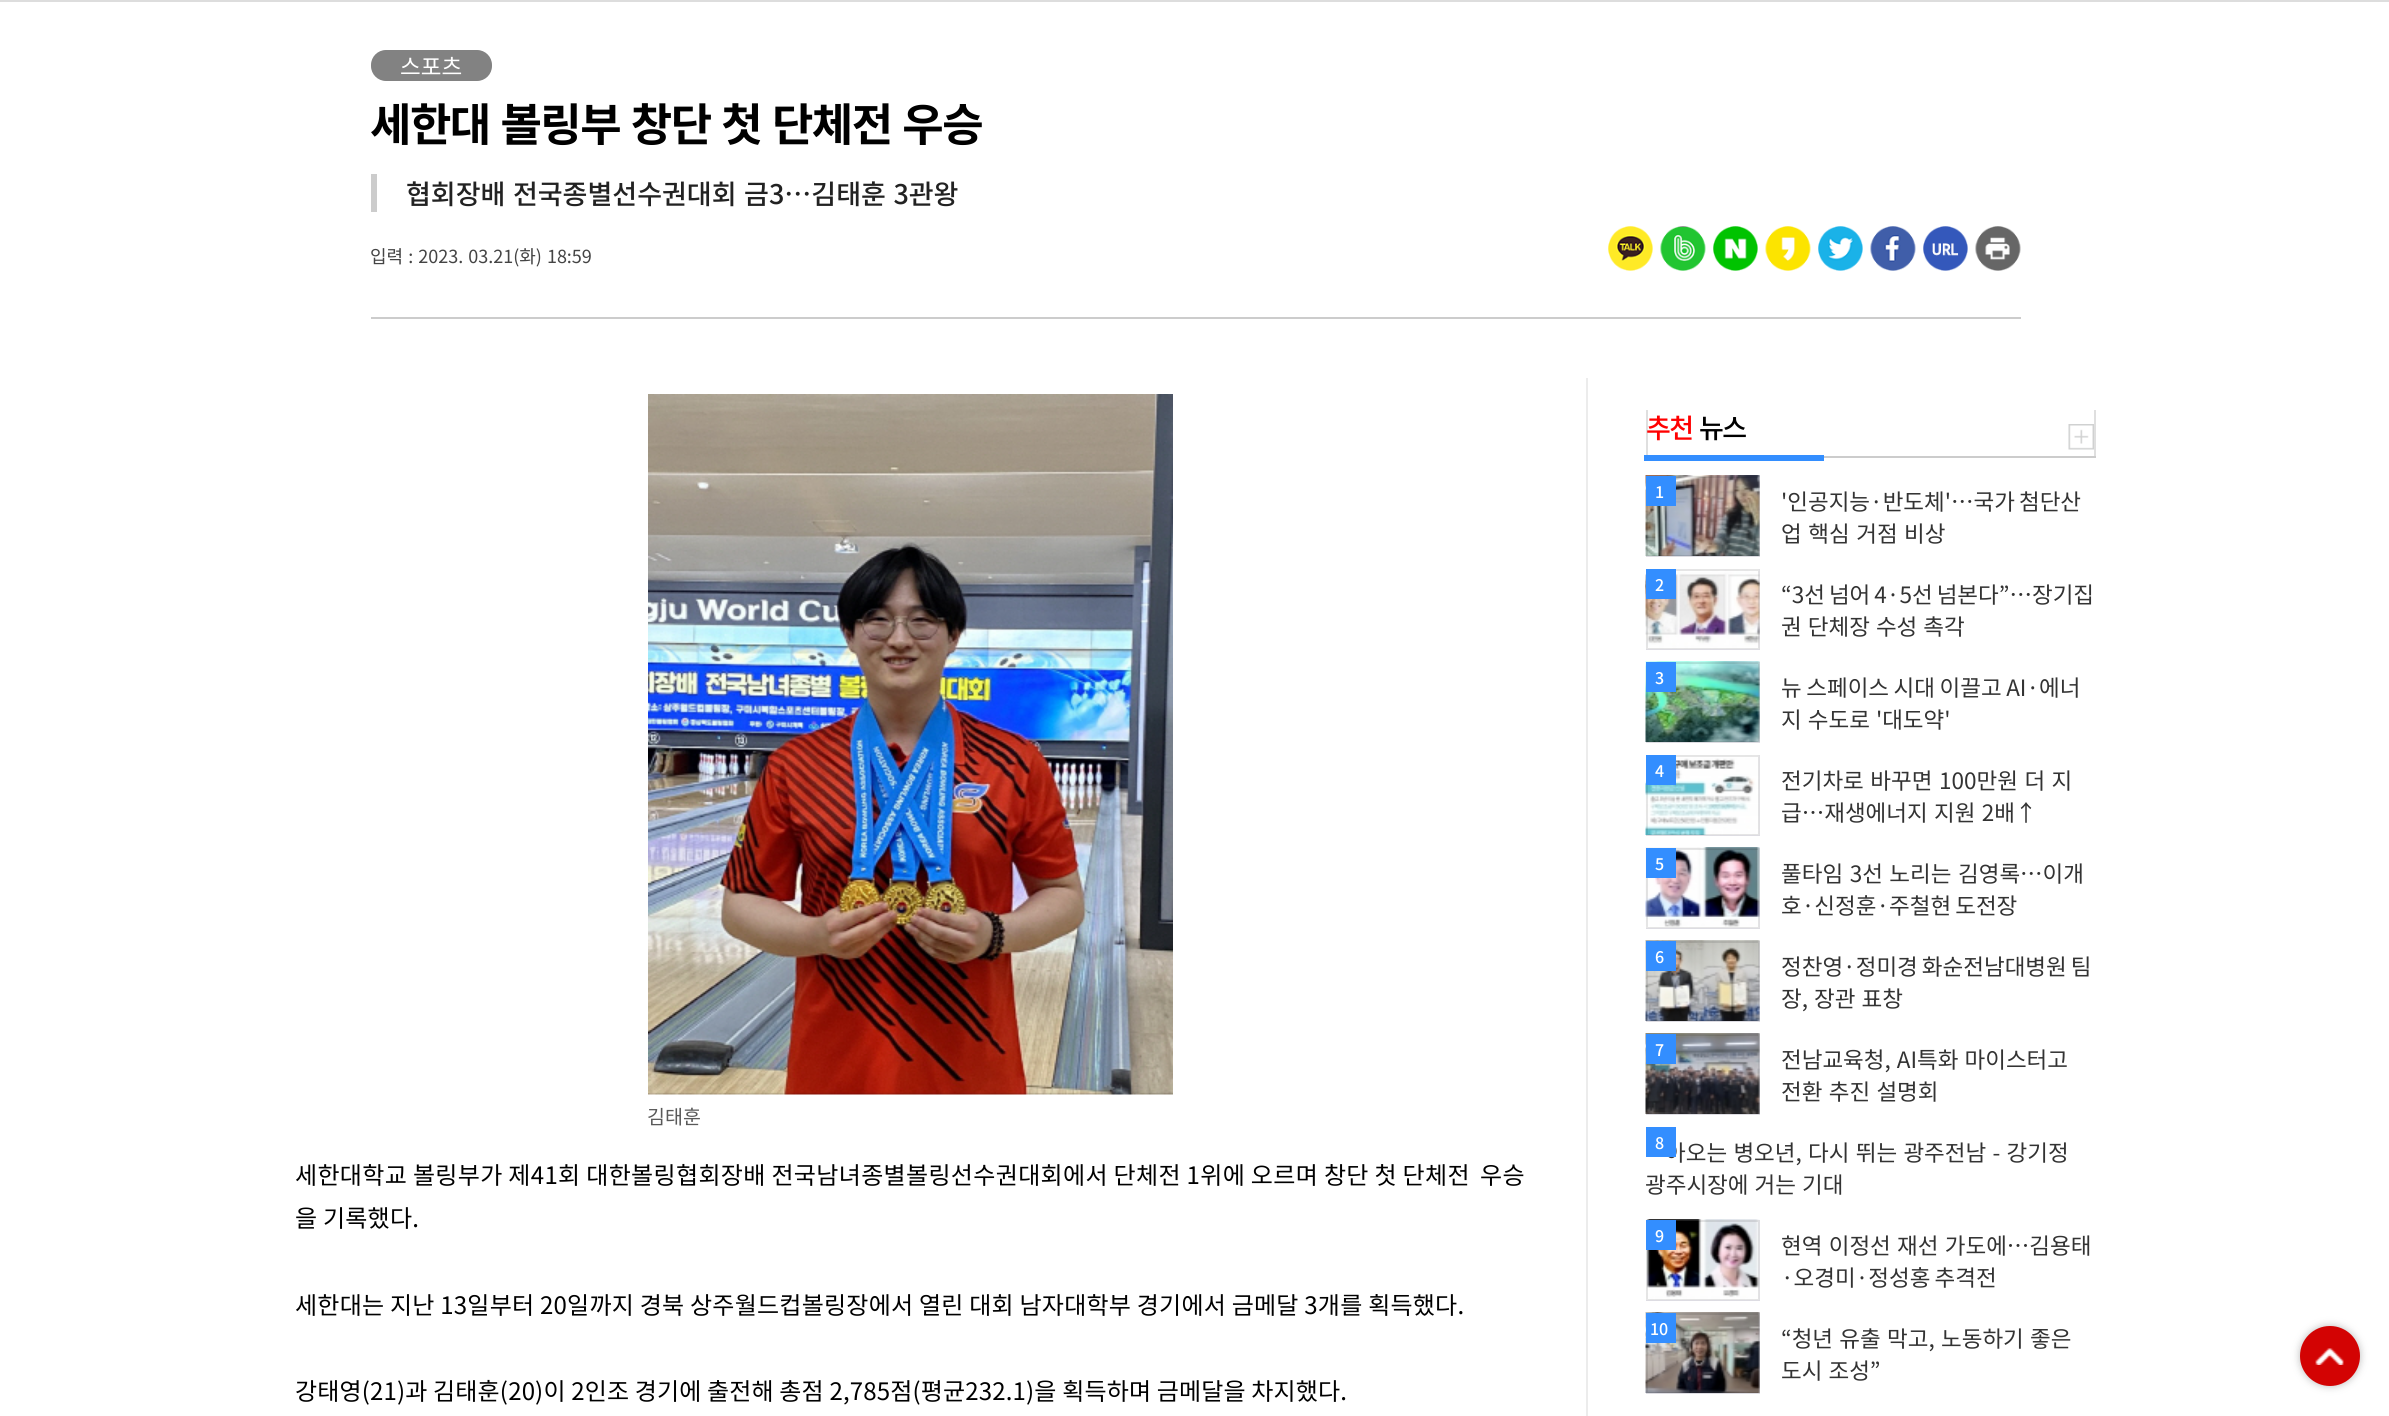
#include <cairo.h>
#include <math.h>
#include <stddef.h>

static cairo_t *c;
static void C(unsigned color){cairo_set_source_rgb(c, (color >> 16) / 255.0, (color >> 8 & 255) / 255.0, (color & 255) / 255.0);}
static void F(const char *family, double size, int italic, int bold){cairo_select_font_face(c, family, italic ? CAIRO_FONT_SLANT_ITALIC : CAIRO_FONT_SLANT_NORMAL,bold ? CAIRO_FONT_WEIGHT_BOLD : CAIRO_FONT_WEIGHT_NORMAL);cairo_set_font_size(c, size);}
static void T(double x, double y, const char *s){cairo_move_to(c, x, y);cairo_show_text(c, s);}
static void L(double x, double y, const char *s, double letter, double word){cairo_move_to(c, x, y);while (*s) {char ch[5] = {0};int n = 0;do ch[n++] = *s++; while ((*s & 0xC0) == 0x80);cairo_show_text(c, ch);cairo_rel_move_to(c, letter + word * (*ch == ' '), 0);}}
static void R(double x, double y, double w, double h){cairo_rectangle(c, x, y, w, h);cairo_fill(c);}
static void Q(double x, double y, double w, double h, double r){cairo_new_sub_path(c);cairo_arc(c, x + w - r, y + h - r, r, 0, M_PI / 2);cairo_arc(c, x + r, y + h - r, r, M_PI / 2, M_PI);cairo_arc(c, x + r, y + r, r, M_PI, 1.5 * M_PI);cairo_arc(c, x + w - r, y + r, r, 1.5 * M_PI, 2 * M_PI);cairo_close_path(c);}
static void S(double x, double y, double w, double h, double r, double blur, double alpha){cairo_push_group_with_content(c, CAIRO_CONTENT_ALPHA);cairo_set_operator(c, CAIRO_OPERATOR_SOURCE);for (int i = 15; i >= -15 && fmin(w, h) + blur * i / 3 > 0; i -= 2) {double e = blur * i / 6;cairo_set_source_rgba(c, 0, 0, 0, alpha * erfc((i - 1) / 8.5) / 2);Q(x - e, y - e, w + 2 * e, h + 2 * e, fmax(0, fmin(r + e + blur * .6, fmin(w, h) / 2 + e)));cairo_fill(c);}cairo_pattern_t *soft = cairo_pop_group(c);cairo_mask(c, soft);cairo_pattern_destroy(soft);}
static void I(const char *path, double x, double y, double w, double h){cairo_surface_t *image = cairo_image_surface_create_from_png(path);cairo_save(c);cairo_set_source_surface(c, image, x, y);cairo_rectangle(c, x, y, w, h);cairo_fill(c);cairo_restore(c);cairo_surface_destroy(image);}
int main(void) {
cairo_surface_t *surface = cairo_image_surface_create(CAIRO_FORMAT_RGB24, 2389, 1416);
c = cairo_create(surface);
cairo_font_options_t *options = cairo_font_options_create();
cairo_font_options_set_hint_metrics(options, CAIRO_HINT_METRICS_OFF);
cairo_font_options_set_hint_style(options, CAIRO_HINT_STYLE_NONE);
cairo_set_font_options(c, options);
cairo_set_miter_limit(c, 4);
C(0xffffff);
cairo_paint(c);
C(0xdddddd);
R(0,0,2389,2);
C(0xcccccc);
R(371,317,1650,2);
C(0x828282);
Q(371,50,121,31,15);
cairo_fill(c);
F("Noto Sans KR",22.5,0,0);
C(0xffffff);
T(400,75,"스포츠");
F("Noto Sans KR",45,0,1);
C(0x000000);
L(370,141,"세한대 볼링부 창단 첫 단체전 우승",-1.5,2);
C(0xcccccc);
R(371,174,6,38);
F("Noto Sans KR Medium",27,0,0);
C(0x222222);
L(406,204,"협회장배 전국종별선수권대회 금3…김태훈 3관왕",0,1.5);
F("Noto Sans KR",18,0,0);
C(0x444444);
L(370,263,"입력 : 2023. 03.21(화) 18:59",0,1);
I("1.png",1608,226,45,45);
I("2.png",1660,226,46,45);
I("3.png",1713,226,45,45);
I("4.png",1765,226,46,45);
I("5.png",1818,226,45,45);
I("6.png",1870,226,46,45);
I("7.png",1923,226,45,45);
I("8.png",1975,226,46,45);
I("9.png",648,394,525,701);
F("Noto Sans KR",19.5,0,0);
C(0x595959);
T(647,1124,"김태훈");
F("Noto Sans KR",24,0,0);
C(0x000000);
L(295,1184,"세한대학교 볼링부가 제41회 대한볼링협회장배 전국남녀종별볼링선수권대회에서 단체전 1위에 오르며 창단 첫 단체전",.35,0);
L(1480,1184,"우승",.35,0);
L(295,1227,"을 기록했다.",.25,0);
L(295,1314,"세한대는 지난 13일부터 20일까지 경북 상주월드컵볼링장에서 열린 대회 남자대학부 경기에서 금메달 3개를 획득했다.",.25,0);
L(295,1400,"강태영(21)과 김태훈(20)이 2인조 경기에 출전해 총점 2,785점(평균232.1)을 획득하며 금메달을 차지했다.",.17,0);
C(0xececec);
R(1586,378,2,1038);
C(0xdfdfdf);
R(2094,410,2,48);
C(0xcccccc);
R(1824,456,272,2);
C(0xdfdfdf);
R(1646,410,2,48);
F("Noto Sans KR Medium",27,0,0);
C(0xff0000);
L(1646,438,"추천",-1.5,0);
C(0x000000);
L(1699,438,"뉴스",-1.5,0);
I("10.png",2068,424,26,26);
C(0x338eff);
R(1644,455,180,6);
C(0xf5f4fb);
R(1646,476,114,81);
I("11.png",1645,475,115,81);
cairo_rectangle(c,1647,477,112,79);
cairo_set_source_rgba(c,0,0,0,0.1);
cairo_stroke(c);
C(0x338eff);
R(1646,476,30,30);
F("Noto Sans KR Medium",16,0,0);
C(0xffffff);
T(1655,498,"1");
F("Noto Sans KR",22.5,0,0);
C(0x333333);
L(1781,510,"'인공지능·반도체'…국가 첨단산",0,-1);
L(1781,542,"업 핵심 거점 비상",0,1.5);
C(0xf5f4fb);
R(1646,569,114,81);
I("12.png",1645,569,115,80);
cairo_rectangle(c,1647,570,112,79);
cairo_set_source_rgba(c,0,0,0,0.1);
cairo_stroke(c);
C(0x338eff);
R(1646,569,30,30);
F("Noto Sans KR Medium",16,0,0);
C(0xffffff);
T(1655,591,"2");
F("Noto Sans KR",22.5,0,0);
C(0x333333);
L(1781,603,"“3선 넘어 4·5선 넘본다”…장기집",0,-1);
L(1781,635,"권 단체장 수성 촉각",0,1);
C(0xf5f4fb);
R(1646,662,114,81);
I("13.png",1645,661,115,81);
cairo_rectangle(c,1647,663,112,79);
cairo_set_source_rgba(c,0,0,0,0.1);
cairo_stroke(c);
C(0x338eff);
R(1646,662,30,30);
F("Noto Sans KR Medium",16,0,0);
C(0xffffff);
T(1655,684,"3");
F("Noto Sans KR",22.5,0,0);
C(0x333333);
L(1781,696,"뉴 스페이스 시대 이끌고 AI·에너",0,-.5);
L(1781,728,"지 수도로 '대도약'",0,1);
C(0xf5f4fb);
R(1646,755,114,81);
I("14.png",1645,755,115,80);
cairo_rectangle(c,1647,756,112,79);
cairo_set_source_rgba(c,0,0,0,0.1);
cairo_stroke(c);
C(0x338eff);
R(1646,755,30,30);
F("Noto Sans KR Medium",16,0,0);
C(0xffffff);
T(1655,777,"4");
F("Noto Sans KR",22.5,0,0);
C(0x333333);
L(1781,789,"전기차로 바꾸면 100만원 더 지",0,1.5);
L(1781,821,"급…재생에너지 지원 2배↑",0,1.25);
C(0xf5f4fb);
R(1646,848,114,81);
I("15.png",1645,847,115,81);
cairo_rectangle(c,1647,849,112,79);
cairo_set_source_rgba(c,0,0,0,0.1);
cairo_stroke(c);
C(0x338eff);
R(1646,848,30,30);
F("Noto Sans KR Medium",16,0,0);
C(0xffffff);
T(1655,870,"5");
F("Noto Sans KR",22.5,0,0);
C(0x333333);
L(1781,882,"풀타임 3선 노리는 김영록…이개",0,1.5);
L(1781,914,"호·신정훈·주철현 도전장",0,-1);
C(0xf5f4fb);
R(1646,941,114,81);
I("16.png",1645,940,115,81);
cairo_rectangle(c,1647,942,112,79);
cairo_set_source_rgba(c,0,0,0,0.1);
cairo_stroke(c);
C(0x338eff);
R(1646,941,30,30);
F("Noto Sans KR Medium",16,0,0);
C(0xffffff);
T(1655,963,"6");
F("Noto Sans KR",22.5,0,0);
C(0x333333);
L(1781,975,"정찬영·정미경 화순전남대병원 팀",0,-1);
L(1781,1007,"장, 장관 표창",0,1);
C(0xf5f4fb);
R(1646,1034,114,81);
I("17.png",1645,1033,115,81);
cairo_rectangle(c,1647,1035,112,79);
cairo_set_source_rgba(c,0,0,0,0.1);
cairo_stroke(c);
C(0x338eff);
R(1646,1034,30,30);
F("Noto Sans KR Medium",16,0,0);
C(0xffffff);
T(1655,1056,"7");
F("Noto Sans KR",22.5,0,0);
C(0x333333);
L(1781,1068,"전남교육청, AI특화 마이스터고",0,1);
L(1781,1100,"전환 추진 설명회",0,1.25);
L(1665,1161,"아오는 병오년, 다시 뛰는 광주전남 - 강기정",0,1.25);
C(0x338eff);
R(1646,1127,30,30);
F("Noto Sans KR Medium",16,0,0);
C(0xffffff);
T(1655,1149,"8");
F("Noto Sans KR",22.5,0,0);
C(0x333333);
L(1645,1193,"광주시장에 거는 기대",0,1);
C(0xf5f4fb);
R(1646,1220,114,81);
I("18.png",1646,1219,114,81);
cairo_rectangle(c,1647,1221,112,79);
cairo_set_source_rgba(c,0,0,0,0.1);
cairo_stroke(c);
C(0x338eff);
R(1646,1220,30,30);
F("Noto Sans KR Medium",16,0,0);
C(0xffffff);
T(1655,1242,"9");
F("Noto Sans KR",22.5,0,0);
C(0x333333);
L(1781,1254,"현역 이정선 재선 가도에…김용태",0,1.25);
L(1781,1286,"·오경미·정성홍 추격전",0,-1);
C(0xf5f4fb);
R(1646,1313,114,81);
I("19.png",1645,1312,115,81);
cairo_rectangle(c,1647,1314,112,79);
cairo_set_source_rgba(c,0,0,0,0.1);
cairo_stroke(c);
C(0x338eff);
R(1646,1313,30,30);
F("Noto Sans KR Medium",16,0,0);
C(0xffffff);
T(1650,1335,"10");
F("Noto Sans KR",22.5,0,0);
C(0x333333);
L(1781,1347,"“청년 유출 막고, 노동하기 좋은",0,1.25);
L(1781,1379,"도시 조성”",0,1);
C(0xbcbcbc);
S(2300,1326,60,60,30,4,1);
C(0xd30303);
cairo_arc(c,2330,1356,30,0,2 * M_PI);
cairo_fill(c);
I("20.png",2315,1348,29,17);
cairo_surface_write_to_png(surface, "o.png");
cairo_font_options_destroy(options);
cairo_destroy(c);
cairo_surface_destroy(surface);
return 0;
}
